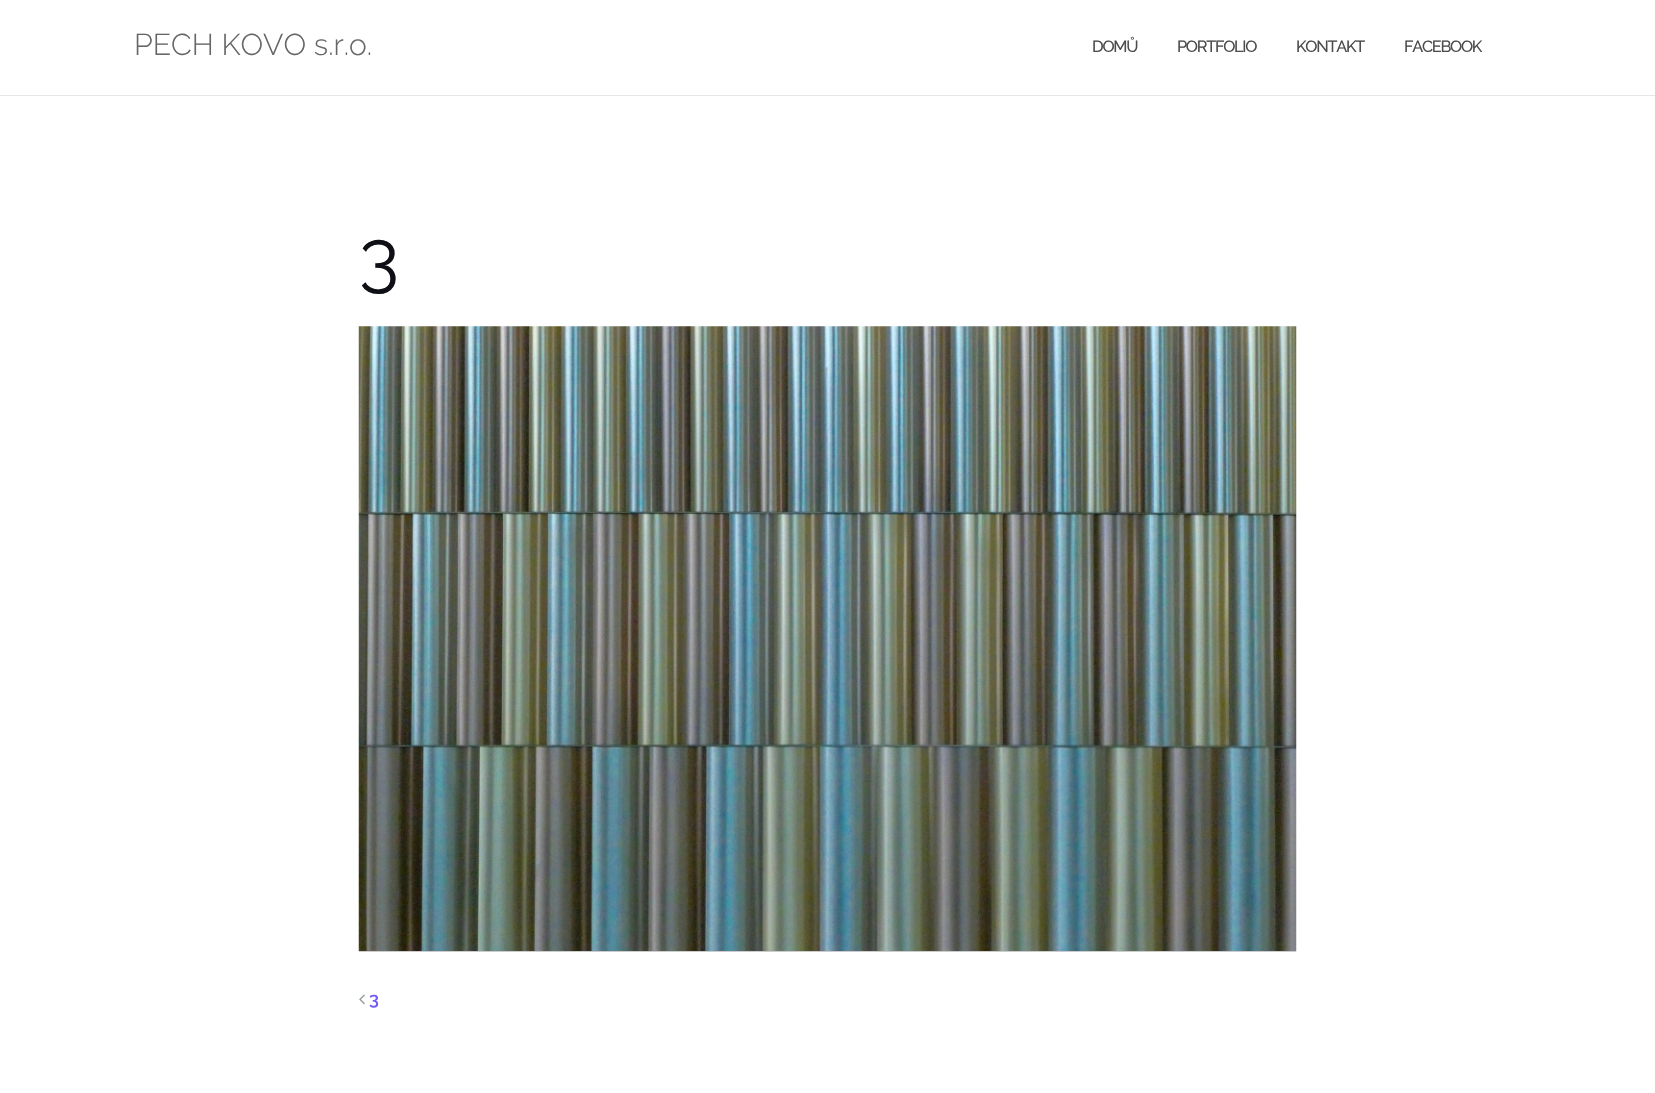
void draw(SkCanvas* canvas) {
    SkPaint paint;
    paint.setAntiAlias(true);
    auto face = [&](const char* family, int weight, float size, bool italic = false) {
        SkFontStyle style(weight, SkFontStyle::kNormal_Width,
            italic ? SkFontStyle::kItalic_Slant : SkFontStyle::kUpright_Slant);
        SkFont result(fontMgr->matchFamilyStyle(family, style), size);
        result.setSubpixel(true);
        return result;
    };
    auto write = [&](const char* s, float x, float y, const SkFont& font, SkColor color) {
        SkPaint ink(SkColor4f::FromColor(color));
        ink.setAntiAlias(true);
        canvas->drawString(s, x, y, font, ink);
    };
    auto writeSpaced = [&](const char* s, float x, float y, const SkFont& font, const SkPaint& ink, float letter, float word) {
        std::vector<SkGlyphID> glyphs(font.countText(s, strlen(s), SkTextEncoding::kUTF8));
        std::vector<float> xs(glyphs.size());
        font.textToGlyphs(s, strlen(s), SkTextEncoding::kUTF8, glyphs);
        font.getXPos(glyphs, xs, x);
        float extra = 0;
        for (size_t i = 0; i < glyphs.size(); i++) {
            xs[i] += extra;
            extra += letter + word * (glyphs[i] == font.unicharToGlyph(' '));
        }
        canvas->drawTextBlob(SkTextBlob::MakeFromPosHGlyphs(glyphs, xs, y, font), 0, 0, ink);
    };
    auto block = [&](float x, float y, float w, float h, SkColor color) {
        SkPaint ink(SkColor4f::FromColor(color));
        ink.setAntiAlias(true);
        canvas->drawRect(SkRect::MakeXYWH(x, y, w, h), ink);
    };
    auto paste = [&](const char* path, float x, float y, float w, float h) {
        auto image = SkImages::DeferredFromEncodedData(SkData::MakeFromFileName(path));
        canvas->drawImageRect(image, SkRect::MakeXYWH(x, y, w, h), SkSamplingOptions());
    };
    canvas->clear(SK_ColorWHITE);
    block(0, 95, 1655, 1, SkColorSetRGB(230, 230, 230));
    auto kFont1 = face("Raleway", 300, 30);
    write("PECH KOVO s.r.o.", 134, 55, kFont1, SkColorSetRGB(102, 102, 102));
    auto kFont2 = face("Raleway", 500, 16.25f);
    paint.setColor(SkColorSetRGB(76, 76, 76));
    writeSpaced("DOMŮ", 1092, 52, kFont2, paint, -1.25f, 0);
    writeSpaced("PORTFOLIO", 1177, 52, kFont2, paint, -1.25f, 0);
    writeSpaced("KONTAKT", 1296, 52, kFont2, paint, -1.25f, 0);
    writeSpaced("FACEBOOK", 1404, 52, kFont2, paint, -1.25f, 0);
    auto kFont3 = face("Raleway", 400, 75);
    write("3", 359, 283, kFont3, SkColorSetRGB(14, 16, 21));
    paste("pic1.png", 358, 326, 939, 626);
    block(359, 951, 937, 1, SkColorSetRGB(204, 204, 204));
    paste("pic2.png", 359, 994, 6, 11);
    auto kFont4 = face("Raleway", 600, 18);
    write("3", 369, 1005, kFont4, SkColorSetRGB(116, 92, 249));
}
